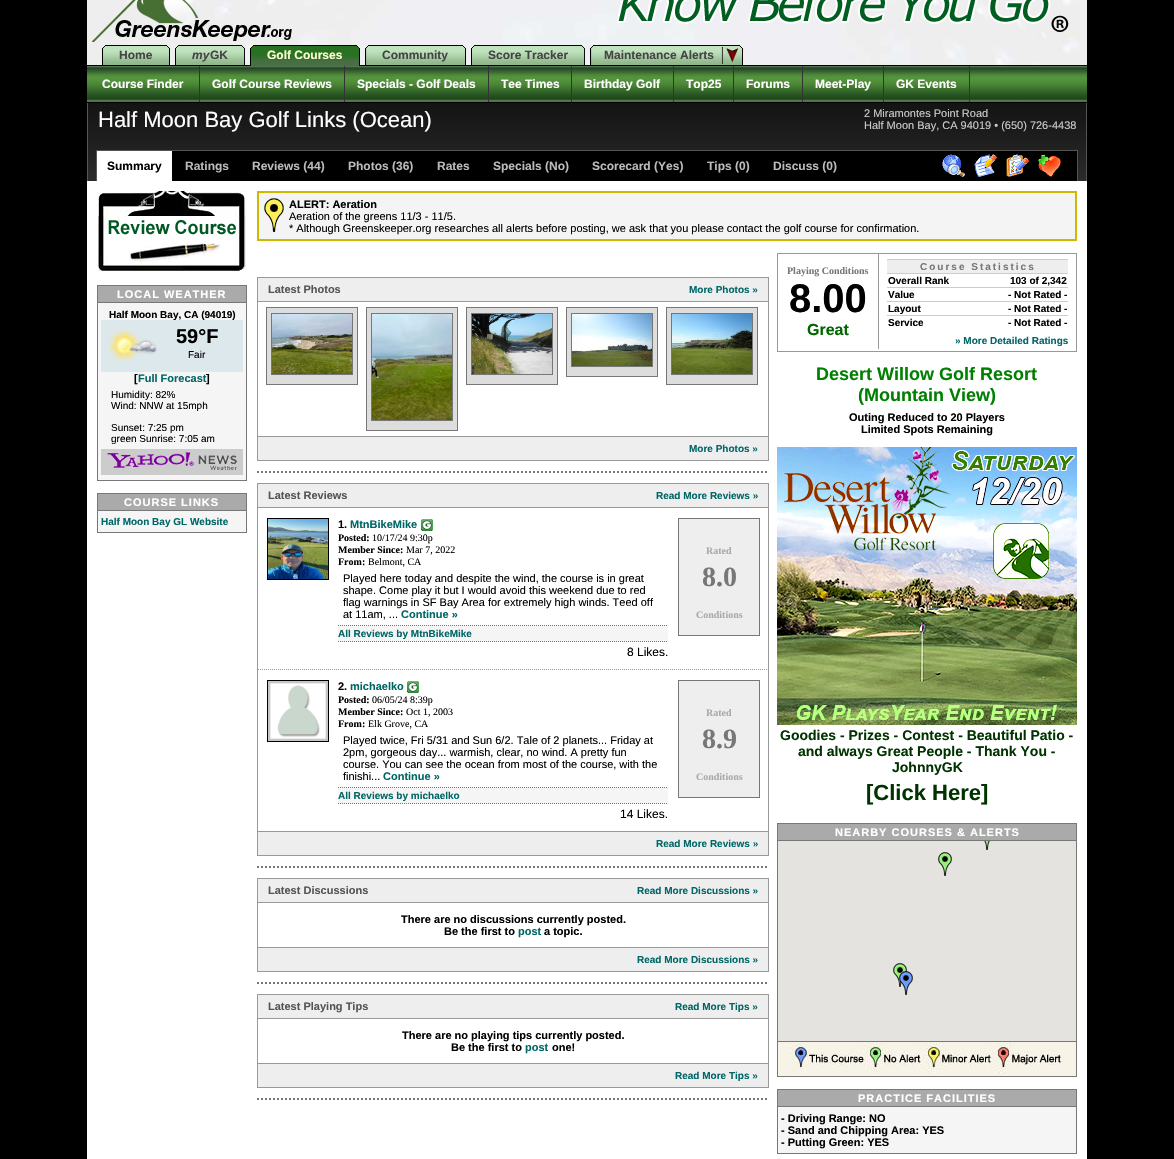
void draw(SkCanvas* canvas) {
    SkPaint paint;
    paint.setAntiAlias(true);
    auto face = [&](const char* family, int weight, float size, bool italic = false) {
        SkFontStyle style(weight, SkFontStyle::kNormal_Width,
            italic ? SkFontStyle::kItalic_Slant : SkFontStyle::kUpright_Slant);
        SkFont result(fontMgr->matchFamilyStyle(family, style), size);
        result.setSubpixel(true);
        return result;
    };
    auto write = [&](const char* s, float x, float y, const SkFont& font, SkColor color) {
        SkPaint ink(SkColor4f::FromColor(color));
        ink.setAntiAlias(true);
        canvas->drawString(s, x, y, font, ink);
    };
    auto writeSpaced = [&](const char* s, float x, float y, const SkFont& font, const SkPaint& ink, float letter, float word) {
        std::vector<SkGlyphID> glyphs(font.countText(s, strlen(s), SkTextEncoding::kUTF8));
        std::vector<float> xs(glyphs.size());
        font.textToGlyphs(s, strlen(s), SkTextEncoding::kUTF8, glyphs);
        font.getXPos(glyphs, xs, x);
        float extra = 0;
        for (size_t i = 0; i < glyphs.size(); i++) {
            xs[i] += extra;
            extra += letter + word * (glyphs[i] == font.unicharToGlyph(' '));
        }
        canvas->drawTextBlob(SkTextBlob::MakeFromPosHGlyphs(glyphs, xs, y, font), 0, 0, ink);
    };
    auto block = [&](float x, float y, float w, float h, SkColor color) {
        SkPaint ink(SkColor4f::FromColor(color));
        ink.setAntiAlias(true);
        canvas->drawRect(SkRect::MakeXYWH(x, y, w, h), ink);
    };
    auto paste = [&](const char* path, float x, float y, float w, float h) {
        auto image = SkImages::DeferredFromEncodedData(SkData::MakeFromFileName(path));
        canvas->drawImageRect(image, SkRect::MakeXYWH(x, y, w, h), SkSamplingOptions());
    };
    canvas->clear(SK_ColorBLACK);
    block(87, 181, 1000, 978, SK_ColorWHITE);
    paste("pic1.png", 87, 0, 1000, 102);
    paste("pic2.png", 92, 0, 200, 42);
    paste("pic3.png", 617, 0, 452, 32);
    paste("pic4.png", 102, 45, 4, 20);
    paste("pic5.png", 106, 45, 64, 20);
    auto kFont1 = face("Liberation Sans", 700, 12);
    write("Home", 119, 59, kFont1, SkColorSetRGB(68, 68, 68));
    paste("pic4.png", 175, 45, 4, 20);
    paste("pic6.png", 179, 45, 66, 20);
    auto kFont2 = face("Liberation Sans", 700, 12, true);
    write("my", 192, 59, kFont2, SkColorSetRGB(68, 68, 68));
    write("GK", 210, 59, kFont1, SkColorSetRGB(68, 68, 68));
    block(87, 65, 1000, 1, SK_ColorBLACK);
    paste("pic7.png", 250, 45, 4, 21);
    paste("pic8.png", 254, 45, 106, 21);
    write("Golf Courses", 267, 59, kFont1, SkColorSetRGB(255, 255, 204));
    paste("pic9.png", 365, 46, 3, 19);
    paste("pic10.png", 368, 45, 98, 20);
    write("Community", 382, 59, kFont1, SkColorSetRGB(68, 68, 68));
    paste("pic11.png", 471, 45, 4, 20);
    paste("pic12.png", 475, 45, 110, 20);
    write("Score Tracker", 488, 59, kFont1, SkColorSetRGB(68, 68, 68));
    paste("pic13.png", 590, 46, 3, 19);
    paste("pic14.png", 593, 45, 150, 20);
    write("Maintenance Alerts", 604, 59, kFont1, SkColorSetRGB(68, 68, 68));
    paste("pic15.png", 87, 66, 1000, 36);
    block(1086, 102, 1, 79, SkColorSetRGB(85, 85, 85));
    block(87, 102, 1, 79, SkColorSetRGB(85, 85, 85));
    block(87, 102, 1000, 1, SK_ColorBLACK);
    block(199, 66, 1, 36, SkColorSetRGB(51, 51, 51));
    write("Course Finder", 102, 88, kFont1, SK_ColorWHITE);
    block(344, 66, 1, 36, SkColorSetRGB(51, 51, 51));
    write("Golf Course Reviews", 212, 88, kFont1, SK_ColorWHITE);
    block(488, 66, 1, 36, SkColorSetRGB(51, 51, 51));
    write("Specials - Golf Deals", 357, 88, kFont1, SK_ColorWHITE);
    block(571, 66, 1, 36, SkColorSetRGB(51, 51, 51));
    write("Tee Times", 501, 88, kFont1, SK_ColorWHITE);
    block(673, 66, 1, 36, SkColorSetRGB(51, 51, 51));
    write("Birthday Golf", 584, 88, kFont1, SK_ColorWHITE);
    block(733, 66, 1, 36, SkColorSetRGB(51, 51, 51));
    write("Top25", 686, 88, kFont1, SK_ColorWHITE);
    block(802, 66, 1, 36, SkColorSetRGB(51, 51, 51));
    write("Forums", 746, 88, kFont1, SK_ColorWHITE);
    block(883, 66, 1, 36, SkColorSetRGB(51, 51, 51));
    write("Meet-Play", 815, 88, kFont1, SK_ColorWHITE);
    block(969, 66, 1, 36, SkColorSetRGB(51, 51, 51));
    write("GK Events", 896, 88, kFont1, SK_ColorWHITE);
    paste("pic16.png", 88, 103, 998, 78);
    auto kFont3 = face("Liberation Sans", 400, 22);
    write("Half Moon Bay Golf Links (Ocean)", 98, 127, kFont3, SK_ColorWHITE);
    auto kFont4 = face("Liberation Sans", 400, 11);
    write("2 Miramontes Point Road", 864, 117, kFont4, SkColorSetRGB(204, 204, 204));
    write("Half Moon Bay, CA 94019 • (650) 726-4438", 864, 129, kFont4, SkColorSetRGB(204, 204, 204));
    block(172, 151, 905, 30, SK_ColorBLACK);
    block(96, 150, 982, 1, SkColorSetRGB(85, 85, 85));
    block(1077, 150, 1, 31, SkColorSetRGB(85, 85, 85));
    block(96, 150, 1, 31, SkColorSetRGB(85, 85, 85));
    block(97, 151, 75, 30, SK_ColorWHITE);
    write("Summary", 107, 170, kFont1, SK_ColorBLACK);
    write("Ratings", 185, 170, kFont1, SkColorSetRGB(187, 187, 187));
    write("Reviews (44)", 252, 170, kFont1, SkColorSetRGB(187, 187, 187));
    write("Photos (36)", 348, 170, kFont1, SkColorSetRGB(187, 187, 187));
    write("Rates       Specials (No)", 437, 170, kFont1, SkColorSetRGB(187, 187, 187));
    write("Scorecard (Yes)", 592, 170, kFont1, SkColorSetRGB(187, 187, 187));
    write("Tips (0)", 707, 170, kFont1, SkColorSetRGB(187, 187, 187));
    write("Discuss (0)", 773, 170, kFont1, SkColorSetRGB(187, 187, 187));
    paste("pic17.png", 942, 154, 23, 23);
    paste("pic18.png", 974, 154, 23, 23);
    paste("pic19.png", 1006, 154, 23, 23);
    paste("pic20.png", 1038, 154, 23, 23);
    paste("pic21.png", 97, 191, 149, 80);
    block(98, 286, 148, 16, SkColorSetRGB(170, 170, 170));
    block(97, 285, 150, 1, SkColorSetRGB(119, 119, 119));
    block(246, 285, 1, 17, SkColorSetRGB(119, 119, 119));
    block(97, 285, 1, 17, SkColorSetRGB(119, 119, 119));
    auto kFont5 = face("Liberation Sans", 700, 11);
    paint.setColor(SK_ColorWHITE);
    writeSpaced("LOCAL WEATHER", 117, 298, kFont5, paint, 1, 0);
    paint.setColor(SkColorSetRGB(245, 245, 245));
    canvas->drawRect(SkRect::MakeXYWH(97.5f, 302.5f, 149, 178), paint);
    paint.setStyle(SkPaint::kStroke_Style);
    paint.setStrokeWidth(1);
    paint.setColor(SkColorSetRGB(119, 119, 119));
    canvas->drawRect(SkRect::MakeXYWH(97.5f, 302.5f, 149, 178), paint);
    block(101, 320, 142, 52, SkColorSetRGB(221, 232, 236));
    auto kFont6 = face("Liberation Sans", 700, 10);
    write("Half Moon Bay, CA (94019)", 109, 318, kFont6, SK_ColorBLACK);
    paste("pic22.png", 107, 328, 50, 34);
    auto kFont7 = face("Liberation Sans", 700, 20);
    write("59°F", 176, 343, kFont7, SK_ColorBLACK);
    auto kFont8 = face("Liberation Sans", 400, 10);
    write("Fair", 188, 358, kFont8, SK_ColorBLACK);
    write("[", 134, 382, kFont5, SK_ColorBLACK);
    write("Full Forecast", 138, 382, kFont5, SkColorSetRGB(0, 102, 102));
    write("]", 206, 382, kFont5, SK_ColorBLACK);
    write("Humidity: 82%", 111, 398, kFont8, SK_ColorBLACK);
    write("Wind: NNW at 15mph", 111, 409, kFont8, SK_ColorBLACK);
    write("Sunset: 7:25 pm", 111, 431, kFont8, SK_ColorBLACK);
    write("green Sunrise: 7:05 am", 111, 442, kFont8, SK_ColorBLACK);
    block(101, 449, 142, 26, SkColorSetRGB(204, 204, 204));
    paste("pic23.png", 107, 452, 130, 18);
    block(98, 494, 148, 16, SkColorSetRGB(170, 170, 170));
    block(97, 493, 150, 1, SkColorSetRGB(119, 119, 119));
    block(246, 493, 1, 17, SkColorSetRGB(119, 119, 119));
    block(97, 493, 1, 17, SkColorSetRGB(119, 119, 119));
    paint.setStyle(SkPaint::kFill_Style);
    paint.setColor(SK_ColorWHITE);
    writeSpaced("COURSE LINKS", 124, 506, kFont5, paint, 1, 0);
    paint.setColor(SkColorSetRGB(245, 245, 245));
    canvas->drawRect(SkRect::MakeXYWH(97.5f, 510.5f, 149, 22), paint);
    paint.setStyle(SkPaint::kStroke_Style);
    paint.setColor(SkColorSetRGB(119, 119, 119));
    canvas->drawRect(SkRect::MakeXYWH(97.5f, 510.5f, 149, 22), paint);
    write("Half Moon Bay GL Website", 101, 525, kFont6, SkColorSetRGB(0, 102, 102));
    paint.setStyle(SkPaint::kFill_Style);
    paint.setColor(SkColorSetRGB(244, 244, 244));
    canvas->drawRect(SkRect::MakeXYWH(258, 192, 818, 48), paint);
    paint.setStyle(SkPaint::kStroke_Style);
    paint.setStrokeWidth(2);
    paint.setColor(SkColorSetRGB(206, 184, 2));
    canvas->drawRect(SkRect::MakeXYWH(258, 192, 818, 48), paint);
    paste("pic24.png", 264, 198, 20, 34);
    write("ALERT: Aeration", 289, 208, kFont5, SK_ColorBLACK);
    write("Aeration of the greens 11/3 - 11/5.", 289, 220, kFont4, SK_ColorBLACK);
    write("* Although Greenskeeper.org researches all alerts before posting, we ask that you please contact the golf course for confirmation.", 289, 232, kFont4, SK_ColorBLACK);
    paint.setColor(SkColorSetRGB(119, 119, 119));
    paint.setPathEffect(SkDashPathEffect::Make({{2, 2}}, 0));
    canvas->drawPath(SkPathBuilder().moveTo(257, 472).lineTo(767, 472).detach(), paint);
    paint.setPathEffect(nullptr);
    paint.setStrokeWidth(1);
    paint.setColor(SkColorSetRGB(153, 153, 153));
    canvas->drawRect(SkRect::MakeXYWH(257.5f, 277.5f, 511, 183), paint);
    block(258, 278, 510, 23, SkColorSetRGB(238, 238, 238));
    block(258, 301, 510, 1, SkColorSetRGB(153, 153, 153));
    write("Latest Photos", 268, 293, kFont5, SkColorSetRGB(85, 85, 85));
    write("More Photos »", 689, 293, kFont6, SkColorSetRGB(0, 102, 102));
    paint.setStyle(SkPaint::kFill_Style);
    paint.setColor(SkColorSetRGB(221, 221, 221));
    canvas->drawRect(SkRect::MakeXYWH(266.5f, 307.5f, 91, 77), paint);
    paint.setStyle(SkPaint::kStroke_Style);
    paint.setColor(SkColorSetRGB(119, 119, 119));
    canvas->drawRect(SkRect::MakeXYWH(266.5f, 307.5f, 91, 77), paint);
    canvas->drawRect(SkRect::MakeXYWH(271.5f, 313.5f, 81, 61), paint);
    paste("pic25.png", 272, 314, 80, 60);
    paint.setStyle(SkPaint::kFill_Style);
    paint.setColor(SkColorSetRGB(221, 221, 221));
    canvas->drawRect(SkRect::MakeXYWH(366.5f, 307.5f, 91, 123), paint);
    paint.setStyle(SkPaint::kStroke_Style);
    paint.setColor(SkColorSetRGB(119, 119, 119));
    canvas->drawRect(SkRect::MakeXYWH(366.5f, 307.5f, 91, 123), paint);
    canvas->drawRect(SkRect::MakeXYWH(371.5f, 313.5f, 81, 107), paint);
    paste("pic26.png", 372, 314, 80, 106);
    paint.setStyle(SkPaint::kFill_Style);
    paint.setColor(SkColorSetRGB(221, 221, 221));
    canvas->drawRect(SkRect::MakeXYWH(466.5f, 307.5f, 91, 77), paint);
    paint.setStyle(SkPaint::kStroke_Style);
    paint.setColor(SkColorSetRGB(119, 119, 119));
    canvas->drawRect(SkRect::MakeXYWH(466.5f, 307.5f, 91, 77), paint);
    canvas->drawRect(SkRect::MakeXYWH(471.5f, 313.5f, 81, 61), paint);
    paste("pic27.png", 472, 314, 80, 60);
    paint.setStyle(SkPaint::kFill_Style);
    paint.setColor(SkColorSetRGB(221, 221, 221));
    canvas->drawRect(SkRect::MakeXYWH(566.5f, 307.5f, 91, 69), paint);
    paint.setStyle(SkPaint::kStroke_Style);
    paint.setColor(SkColorSetRGB(119, 119, 119));
    canvas->drawRect(SkRect::MakeXYWH(566.5f, 307.5f, 91, 69), paint);
    canvas->drawRect(SkRect::MakeXYWH(571.5f, 313.5f, 81, 53), paint);
    paste("pic28.png", 572, 314, 80, 52);
    paint.setStyle(SkPaint::kFill_Style);
    paint.setColor(SkColorSetRGB(221, 221, 221));
    canvas->drawRect(SkRect::MakeXYWH(666.5f, 307.5f, 91, 77), paint);
    paint.setStyle(SkPaint::kStroke_Style);
    paint.setColor(SkColorSetRGB(119, 119, 119));
    canvas->drawRect(SkRect::MakeXYWH(666.5f, 307.5f, 91, 77), paint);
    canvas->drawRect(SkRect::MakeXYWH(671.5f, 313.5f, 81, 61), paint);
    paste("pic29.png", 672, 314, 80, 60);
    block(258, 437, 510, 23, SkColorSetRGB(238, 238, 238));
    block(258, 436, 510, 1, SkColorSetRGB(153, 153, 153));
    write("More Photos »", 689, 452, kFont6, SkColorSetRGB(0, 102, 102));
    paint.setStrokeWidth(2);
    paint.setPathEffect(SkDashPathEffect::Make({{2, 2}}, 0));
    canvas->drawPath(SkPathBuilder().moveTo(257, 867).lineTo(767, 867).detach(), paint);
    paint.setPathEffect(nullptr);
    paint.setStrokeWidth(1);
    paint.setColor(SkColorSetRGB(153, 153, 153));
    canvas->drawRect(SkRect::MakeXYWH(257.5f, 483.5f, 511, 372), paint);
    block(258, 484, 510, 23, SkColorSetRGB(238, 238, 238));
    block(258, 507, 510, 1, SkColorSetRGB(153, 153, 153));
    write("Latest Reviews", 268, 499, kFont5, SkColorSetRGB(85, 85, 85));
    write("Read More Reviews »", 656, 499, kFont6, SkColorSetRGB(0, 102, 102));
    paint.setPathEffect(SkDashPathEffect::Make({{1, 1}}, 0));
    canvas->drawPath(SkPathBuilder().moveTo(258, 669.5f).lineTo(768, 669.5f).detach(), paint);
    paint.setPathEffect(nullptr);
    paint.setColor(SK_ColorBLACK);
    canvas->drawRect(SkRect::MakeXYWH(267.5f, 518.5f, 61, 61), paint);
    paste("pic30.png", 268, 519, 60, 60);
    write("1.", 338, 528, kFont5, SK_ColorBLACK);
    write("MtnBikeMike", 350, 528, kFont5, SkColorSetRGB(0, 102, 102));
    paste("pic31.png", 421, 519, 12, 12);
    auto kFont9 = face("Liberation Serif", 700, 10);
    write("Posted:", 338, 541, kFont9, SK_ColorBLACK);
    auto kFont10 = face("Liberation Serif", 400, 10);
    write("10/17/24 9:30p", 372, 541, kFont10, SK_ColorBLACK);
    write("Member Since:", 338, 553, kFont9, SK_ColorBLACK);
    write("Mar 7, 2022", 406, 553, kFont10, SK_ColorBLACK);
    write("From:", 338, 565, kFont9, SK_ColorBLACK);
    write("Belmont, CA", 368, 565, kFont10, SK_ColorBLACK);
    write("Played here today and despite the wind, the course is in great", 343, 582, kFont4, SK_ColorBLACK);
    write("shape. Come play it but I would avoid this weekend due to red", 343, 594, kFont4, SK_ColorBLACK);
    write("flag warnings in SF Bay Area for extremely high winds. Teed off", 343, 606, kFont4, SK_ColorBLACK);
    write("at 11am, ...", 343, 618, kFont4, SK_ColorBLACK);
    write("Continue »", 401, 618, kFont5, SkColorSetRGB(0, 102, 102));
    block(338, 625, 330, 17, SkColorSetRGB(245, 245, 245));
    paint.setColor(SkColorSetRGB(119, 119, 119));
    paint.setPathEffect(SkDashPathEffect::Make({{1, 1}}, 0));
    canvas->drawPath(SkPathBuilder().moveTo(338, 625.5f).lineTo(668, 625.5f).detach(), paint);
    paint.setPathEffect(nullptr);
    paint.setPathEffect(SkDashPathEffect::Make({{1, 1}}, 0));
    canvas->drawPath(SkPathBuilder().moveTo(338, 641.5f).lineTo(668, 641.5f).detach(), paint);
    paint.setPathEffect(nullptr);
    write("All Reviews by MtnBikeMike", 338, 637, kFont6, SkColorSetRGB(0, 102, 102));
    auto kFont11 = face("Liberation Sans", 400, 12);
    write("8 Likes.", 627, 656, kFont11, SK_ColorBLACK);
    paint.setStyle(SkPaint::kFill_Style);
    paint.setColor(SkColorSetRGB(238, 238, 238));
    canvas->drawRect(SkRect::MakeXYWH(678.5f, 518.5f, 81, 117), paint);
    paint.setStyle(SkPaint::kStroke_Style);
    paint.setColor(SkColorSetRGB(119, 119, 119));
    canvas->drawRect(SkRect::MakeXYWH(678.5f, 518.5f, 81, 117), paint);
    write("Rated", 706, 554, kFont9, SkColorSetRGB(170, 170, 170));
    auto kFont12 = face("Liberation Serif", 700, 28);
    write("8.0", 702, 586, kFont12, SkColorSetRGB(119, 119, 119));
    write("Conditions", 696, 618, kFont9, SkColorSetRGB(170, 170, 170));
    paint.setColor(SK_ColorBLACK);
    canvas->drawRect(SkRect::MakeXYWH(267.5f, 680.5f, 61, 61), paint);
    paste("pic32.png", 268, 681, 60, 60);
    write("2.", 338, 690, kFont5, SK_ColorBLACK);
    write("michaelko", 350, 690, kFont5, SkColorSetRGB(0, 102, 102));
    paste("pic31.png", 407, 681, 12, 12);
    write("Posted:", 338, 703, kFont9, SK_ColorBLACK);
    write("06/05/24 8:39p", 372, 703, kFont10, SK_ColorBLACK);
    write("Member Since:", 338, 715, kFont9, SK_ColorBLACK);
    write("Oct 1, 2003", 406, 715, kFont10, SK_ColorBLACK);
    write("From:", 338, 727, kFont9, SK_ColorBLACK);
    write("Elk Grove, CA", 368, 727, kFont10, SK_ColorBLACK);
    write("Played twice, Fri 5/31 and Sun 6/2. Tale of 2 planets... Friday at", 343, 744, kFont4, SK_ColorBLACK);
    write("2pm, gorgeous day... warmish, clear, no wind. A pretty fun", 343, 756, kFont4, SK_ColorBLACK);
    write("course. You can see the ocean from most of the course, with the", 343, 768, kFont4, SK_ColorBLACK);
    write("finishi...", 343, 780, kFont4, SK_ColorBLACK);
    write("Continue »", 383, 780, kFont5, SkColorSetRGB(0, 102, 102));
    block(338, 787, 330, 17, SkColorSetRGB(245, 245, 245));
    paint.setColor(SkColorSetRGB(119, 119, 119));
    paint.setPathEffect(SkDashPathEffect::Make({{1, 1}}, 0));
    canvas->drawPath(SkPathBuilder().moveTo(338, 787.5f).lineTo(668, 787.5f).detach(), paint);
    paint.setPathEffect(nullptr);
    paint.setPathEffect(SkDashPathEffect::Make({{1, 1}}, 0));
    canvas->drawPath(SkPathBuilder().moveTo(338, 803.5f).lineTo(668, 803.5f).detach(), paint);
    paint.setPathEffect(nullptr);
    write("All Reviews by michaelko", 338, 799, kFont6, SkColorSetRGB(0, 102, 102));
    write("14 Likes.", 620, 818, kFont11, SK_ColorBLACK);
    paint.setStyle(SkPaint::kFill_Style);
    paint.setColor(SkColorSetRGB(238, 238, 238));
    canvas->drawRect(SkRect::MakeXYWH(678.5f, 680.5f, 81, 117), paint);
    paint.setStyle(SkPaint::kStroke_Style);
    paint.setColor(SkColorSetRGB(119, 119, 119));
    canvas->drawRect(SkRect::MakeXYWH(678.5f, 680.5f, 81, 117), paint);
    write("Rated", 706, 716, kFont9, SkColorSetRGB(170, 170, 170));
    write("8.9", 702, 748, kFont12, SkColorSetRGB(119, 119, 119));
    write("Conditions", 696, 780, kFont9, SkColorSetRGB(170, 170, 170));
    block(258, 832, 510, 23, SkColorSetRGB(238, 238, 238));
    block(258, 831, 510, 1, SkColorSetRGB(153, 153, 153));
    write("Read More Reviews »", 656, 847, kFont6, SkColorSetRGB(0, 102, 102));
    paint.setStrokeWidth(2);
    paint.setPathEffect(SkDashPathEffect::Make({{2, 2}}, 0));
    canvas->drawPath(SkPathBuilder().moveTo(257, 983).lineTo(767, 983).detach(), paint);
    paint.setPathEffect(nullptr);
    paint.setStrokeWidth(1);
    paint.setColor(SkColorSetRGB(153, 153, 153));
    canvas->drawRect(SkRect::MakeXYWH(257.5f, 878.5f, 511, 93), paint);
    block(258, 879, 510, 23, SkColorSetRGB(238, 238, 238));
    block(258, 902, 510, 1, SkColorSetRGB(153, 153, 153));
    write("Latest Discussions", 268, 894, kFont5, SkColorSetRGB(85, 85, 85));
    write("Read More Discussions »", 637, 894, kFont6, SkColorSetRGB(0, 102, 102));
    write("There are no discussions currently posted.", 401, 923, kFont5, SK_ColorBLACK);
    write("Be the first to", 444, 935, kFont5, SK_ColorBLACK);
    write("post", 518, 935, kFont5, SkColorSetRGB(0, 102, 102));
    write("a topic.", 544, 935, kFont5, SK_ColorBLACK);
    block(258, 948, 510, 23, SkColorSetRGB(238, 238, 238));
    block(258, 947, 510, 1, SkColorSetRGB(153, 153, 153));
    write("Read More Discussions »", 637, 963, kFont6, SkColorSetRGB(0, 102, 102));
    paint.setStrokeWidth(2);
    paint.setColor(SkColorSetRGB(119, 119, 119));
    paint.setPathEffect(SkDashPathEffect::Make({{2, 2}}, 0));
    canvas->drawPath(SkPathBuilder().moveTo(257, 1099).lineTo(767, 1099).detach(), paint);
    paint.setPathEffect(nullptr);
    paint.setStrokeWidth(1);
    paint.setColor(SkColorSetRGB(153, 153, 153));
    canvas->drawRect(SkRect::MakeXYWH(257.5f, 994.5f, 511, 93), paint);
    block(258, 995, 510, 23, SkColorSetRGB(238, 238, 238));
    block(258, 1018, 510, 1, SkColorSetRGB(153, 153, 153));
    write("Latest Playing Tips", 268, 1010, kFont5, SkColorSetRGB(85, 85, 85));
    write("Read More Tips »", 675, 1010, kFont6, SkColorSetRGB(0, 102, 102));
    write("There are no playing tips currently posted.", 402, 1039, kFont5, SK_ColorBLACK);
    write("Be the first to", 451, 1051, kFont5, SK_ColorBLACK);
    write("post", 525, 1051, kFont5, SkColorSetRGB(0, 102, 102));
    write("one!", 552, 1051, kFont5, SK_ColorBLACK);
    block(258, 1064, 510, 23, SkColorSetRGB(238, 238, 238));
    block(258, 1063, 510, 1, SkColorSetRGB(153, 153, 153));
    write("Read More Tips »", 675, 1079, kFont6, SkColorSetRGB(0, 102, 102));
    canvas->drawRect(SkRect::MakeXYWH(777.5f, 253.5f, 299, 98), paint);
    block(878, 254, 1, 95, SkColorSetRGB(153, 153, 153));
    write("Playing Conditions", 787, 274, kFont9, SkColorSetRGB(119, 119, 119));
    auto kFont13 = face("Liberation Sans", 700, 40);
    write("8.00", 789, 312, kFont13, SK_ColorBLACK);
    auto kFont14 = face("Liberation Sans", 700, 16);
    write("Great", 807, 335, kFont14, SkColorSetRGB(0, 102, 0));
    block(887, 260, 181, 13, SkColorSetRGB(238, 238, 238));
    block(887, 259, 181, 1, SkColorSetRGB(204, 204, 204));
    paint.setStyle(SkPaint::kFill_Style);
    paint.setColor(SkColorSetRGB(119, 119, 119));
    writeSpaced("Course Statistics", 920, 270, kFont6, paint, 2, 0);
    block(887, 273, 181, 1, SkColorSetRGB(204, 204, 204));
    write("Overall Rank", 888, 284, kFont6, SK_ColorBLACK);
    write("103 of 2,342", 1010, 284, kFont6, SK_ColorBLACK);
    block(887, 287, 181, 1, SkColorSetRGB(204, 204, 204));
    write("Value", 888, 298, kFont6, SK_ColorBLACK);
    write("- Not Rated -", 1008, 298, kFont6, SK_ColorBLACK);
    block(887, 301, 181, 1, SkColorSetRGB(204, 204, 204));
    write("Layout", 888, 312, kFont6, SK_ColorBLACK);
    write("- Not Rated -", 1008, 312, kFont6, SK_ColorBLACK);
    block(887, 315, 181, 1, SkColorSetRGB(204, 204, 204));
    write("Service", 888, 326, kFont6, SK_ColorBLACK);
    write("- Not Rated -", 1008, 326, kFont6, SK_ColorBLACK);
    write("» More Detailed Ratings", 955, 344, kFont6, SkColorSetRGB(0, 102, 102));
    auto kFont15 = face("Liberation Sans", 700, 18);
    write("Desert Willow Golf Resort", 816, 380, kFont15, SkColorSetRGB(0, 128, 0));
    write("(Mountain View)", 858, 401, kFont15, SkColorSetRGB(0, 128, 0));
    write("Outing Reduced to 20 Players", 849, 421, kFont5, SK_ColorBLACK);
    write("Limited Spots Remaining", 861, 433, kFont5, SK_ColorBLACK);
    paste("pic33.png", 777, 447, 300, 278);
    auto kFont16 = face("Liberation Sans", 700, 14);
    write("Goodies - Prizes - Contest - Beautiful Patio -", 780, 740, kFont16, SkColorSetRGB(0, 51, 0));
    write("and always Great People - Thank You -", 798, 756, kFont16, SkColorSetRGB(0, 51, 0));
    write("JohnnyGK", 892, 772, kFont16, SkColorSetRGB(0, 51, 0));
    auto kFont17 = face("Liberation Sans", 700, 22);
    write("[Click Here]", 866, 800, kFont17, SkColorSetRGB(0, 51, 0));
    block(778, 824, 298, 16, SkColorSetRGB(170, 170, 170));
    block(777, 823, 300, 1, SkColorSetRGB(119, 119, 119));
    block(1076, 823, 1, 17, SkColorSetRGB(119, 119, 119));
    block(777, 823, 1, 17, SkColorSetRGB(119, 119, 119));
    paint.setColor(SK_ColorWHITE);
    writeSpaced("NEARBY COURSES & ALERTS", 835, 836, kFont5, paint, 1, 0);
    paint.setStyle(SkPaint::kStroke_Style);
    paint.setColor(SkColorSetRGB(119, 119, 119));
    canvas->drawRect(SkRect::MakeXYWH(777.5f, 840.5f, 299, 201), paint);
    block(778, 841, 298, 200, SkColorSetRGB(229, 227, 223));
    paste("pic34.png", 984, 841, 6, 9);
    paste("pic35.png", 938, 852, 14, 24);
    paste("pic35.png", 893, 963, 14, 24);
    paste("pic36.png", 899, 971, 14, 24);
    block(778, 1042, 298, 34, SkColorSetRGB(247, 243, 231));
    block(1076, 1042, 1, 35, SkColorSetRGB(119, 119, 119));
    block(777, 1076, 300, 1, SkColorSetRGB(119, 119, 119));
    block(777, 1042, 1, 35, SkColorSetRGB(119, 119, 119));
    paste("pic37.png", 791, 1042, 272, 32);
    block(778, 1090, 298, 16, SkColorSetRGB(170, 170, 170));
    block(777, 1089, 300, 1, SkColorSetRGB(119, 119, 119));
    block(1076, 1089, 1, 17, SkColorSetRGB(119, 119, 119));
    block(777, 1089, 1, 17, SkColorSetRGB(119, 119, 119));
    paint.setStyle(SkPaint::kFill_Style);
    paint.setColor(SK_ColorWHITE);
    writeSpaced("PRACTICE FACILITIES", 858, 1102, kFont5, paint, 1, 0);
    paint.setColor(SkColorSetRGB(245, 245, 245));
    canvas->drawRect(SkRect::MakeXYWH(777.5f, 1106.5f, 299, 47), paint);
    paint.setStyle(SkPaint::kStroke_Style);
    paint.setColor(SkColorSetRGB(119, 119, 119));
    canvas->drawRect(SkRect::MakeXYWH(777.5f, 1106.5f, 299, 47), paint);
    write("- Driving Range: NO", 781, 1122, kFont5, SK_ColorBLACK);
    write("- Sand and Chipping Area: YES", 781, 1134, kFont5, SK_ColorBLACK);
    write("- Putting Green: YES", 781, 1146, kFont5, SK_ColorBLACK);
}
